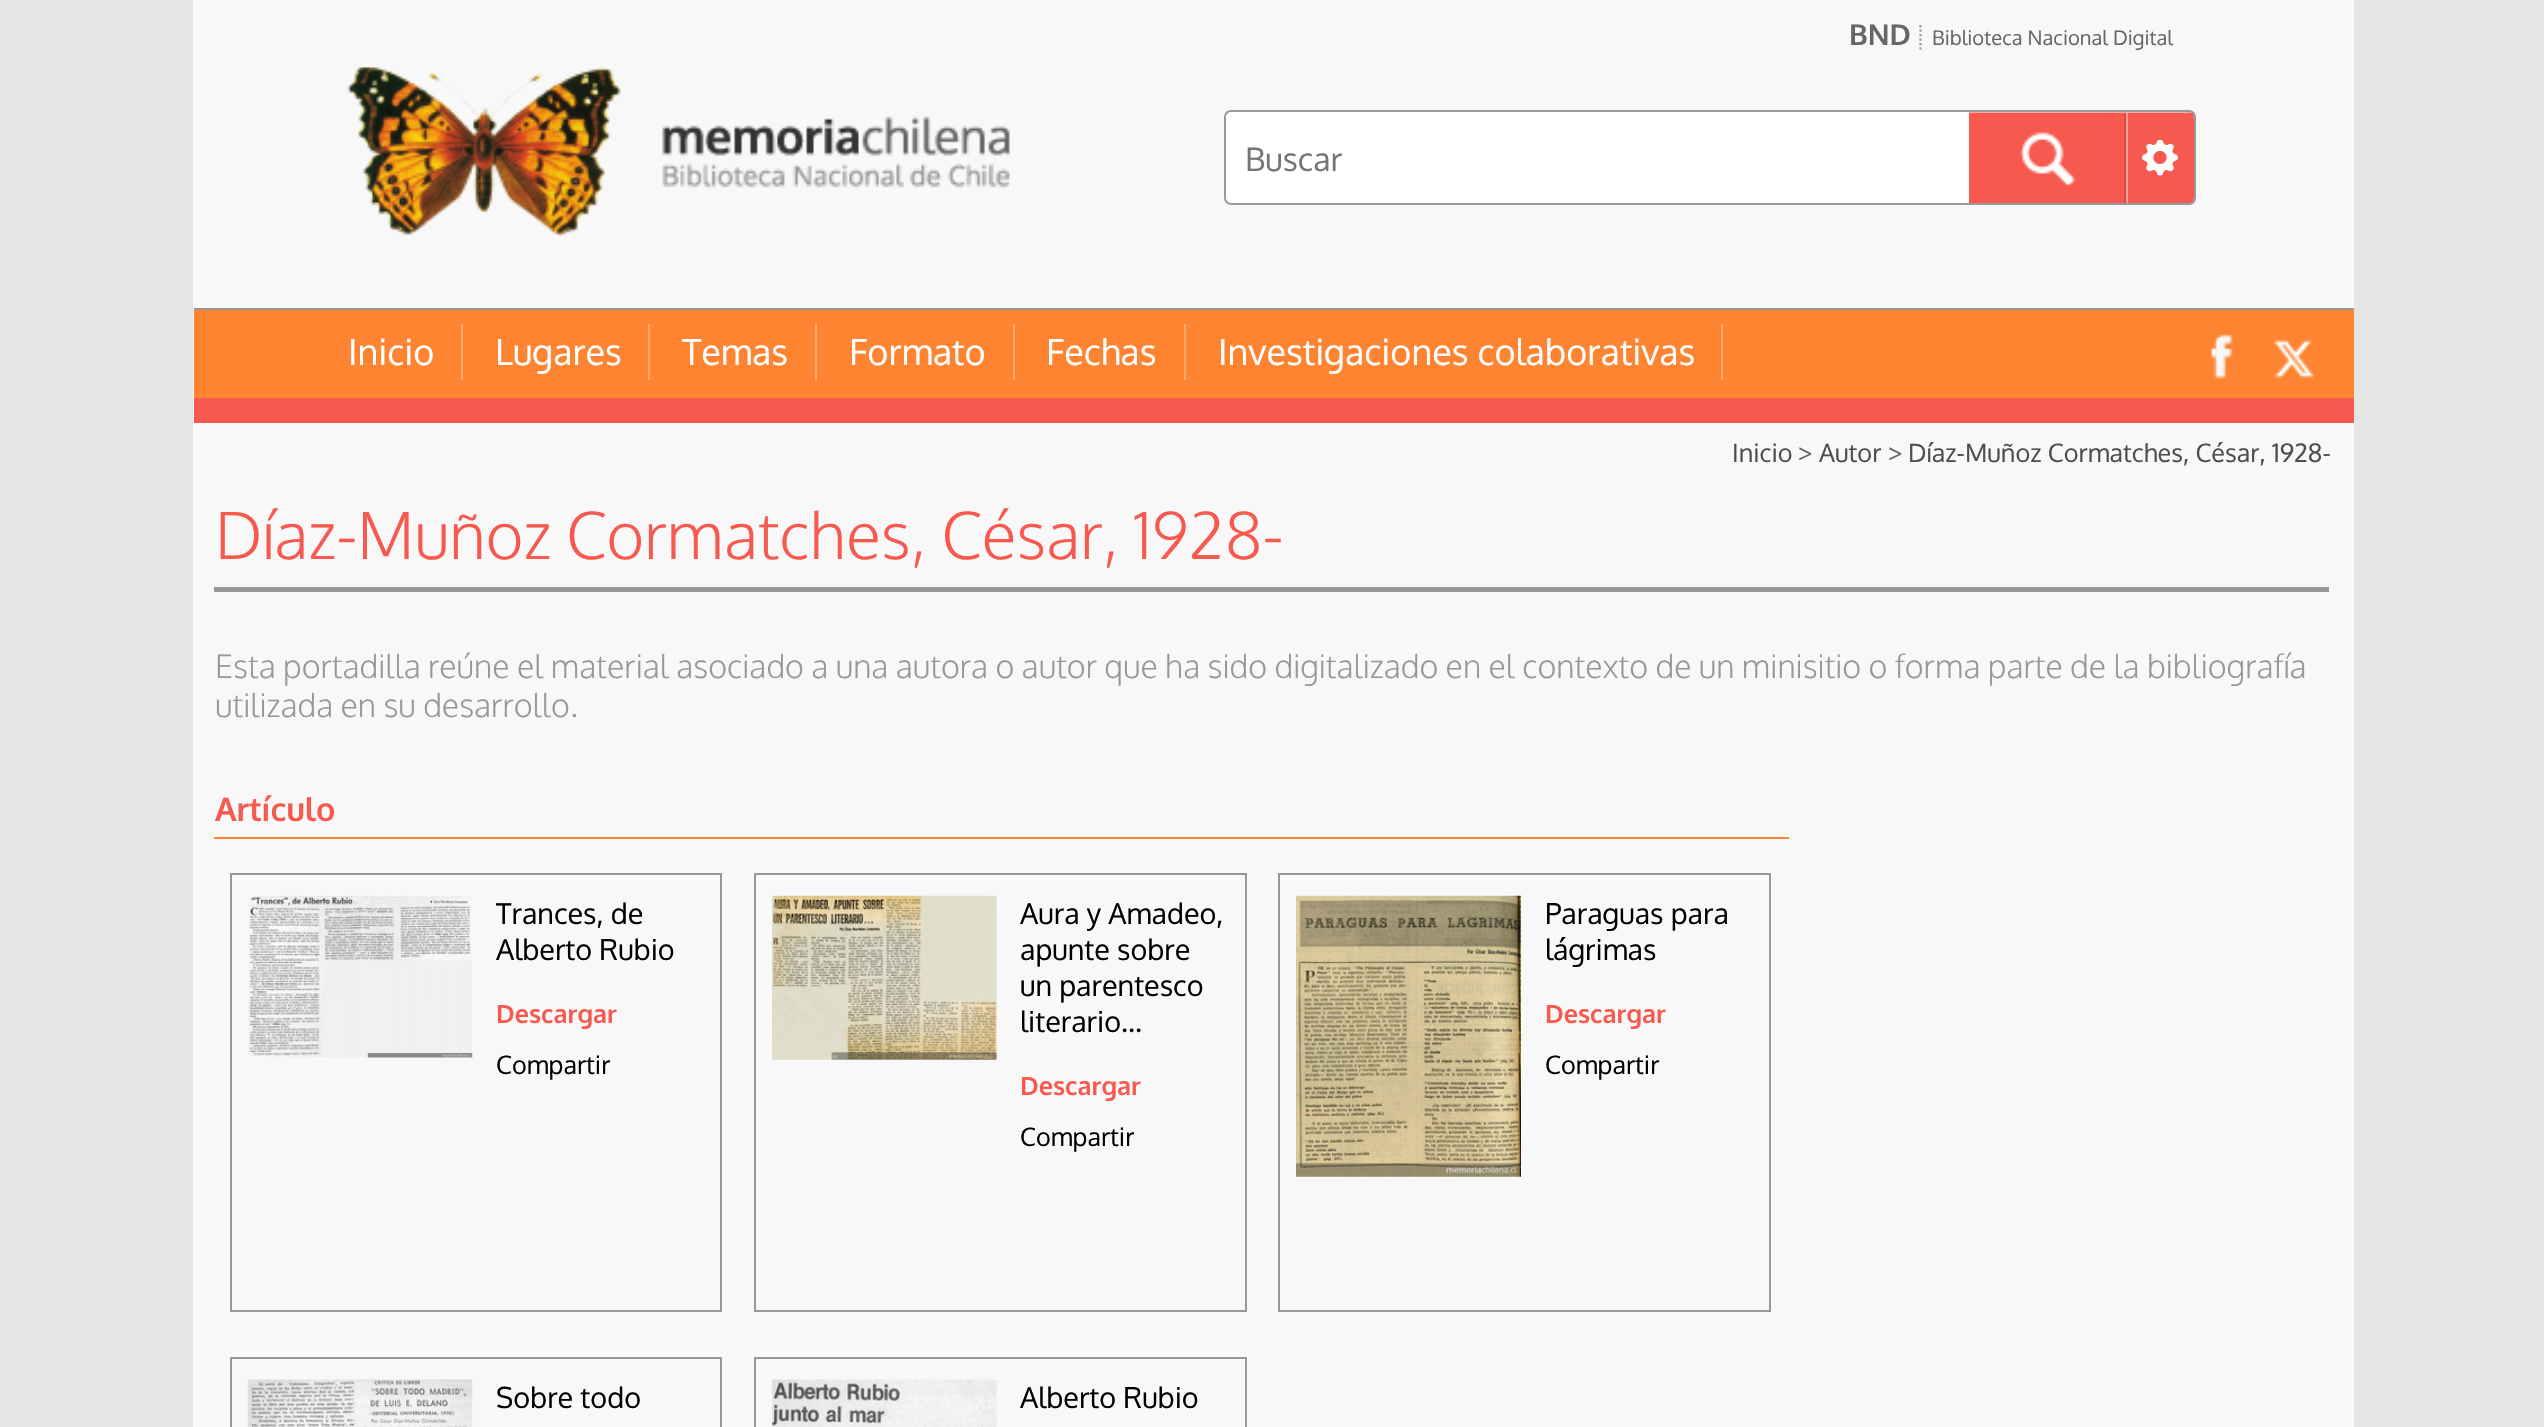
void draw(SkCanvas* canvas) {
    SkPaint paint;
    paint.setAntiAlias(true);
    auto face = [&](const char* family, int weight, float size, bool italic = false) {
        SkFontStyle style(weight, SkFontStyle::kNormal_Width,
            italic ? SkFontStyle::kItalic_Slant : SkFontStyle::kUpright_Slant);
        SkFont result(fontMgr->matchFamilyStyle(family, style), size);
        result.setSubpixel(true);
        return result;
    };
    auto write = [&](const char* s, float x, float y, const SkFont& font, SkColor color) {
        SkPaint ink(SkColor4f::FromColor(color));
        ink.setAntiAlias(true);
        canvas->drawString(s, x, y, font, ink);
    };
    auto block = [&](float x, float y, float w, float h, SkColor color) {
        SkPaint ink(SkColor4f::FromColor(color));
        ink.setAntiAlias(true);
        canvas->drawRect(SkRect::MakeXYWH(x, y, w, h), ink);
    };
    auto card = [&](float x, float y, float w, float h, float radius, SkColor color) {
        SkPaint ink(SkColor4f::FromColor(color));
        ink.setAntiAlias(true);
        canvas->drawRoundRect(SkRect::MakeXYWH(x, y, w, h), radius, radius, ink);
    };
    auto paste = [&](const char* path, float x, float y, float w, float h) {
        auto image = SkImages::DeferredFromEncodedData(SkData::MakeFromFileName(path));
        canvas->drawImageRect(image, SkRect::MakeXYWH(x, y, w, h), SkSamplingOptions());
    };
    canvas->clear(SkColorSetRGB(229, 229, 229));
    block(193, 0, 2161, 1427, SkColorSetRGB(248, 248, 248));
    auto kFont1 = face("Oxygen", 700, 28.75f);
    write("BND", 1849, 45, kFont1, SkColorSetRGB(102, 102, 102));
    paint.setStyle(SkPaint::kStroke_Style);
    paint.setStrokeWidth(2.2f);
    paint.setColor(SkColorSetRGB(153, 153, 153));
    paint.setPathEffect(SkDashPathEffect::Make({{2.25f, 2.25f}}, 0));
    canvas->drawPath(SkPathBuilder().moveTo(1920.5f, 25).lineTo(1920.5f, 49.5f).detach(), paint);
    paint.setPathEffect(nullptr);
    auto kFont2 = face("Oxygen", 400, 20.2f);
    write("Biblioteca Nacional Digital", 1932, 45, kFont2, SkColorSetRGB(102, 102, 102));
    paste("pic1.png", 347, 67, 663, 170);
    card(1224, 110, 972, 95, 7, SK_ColorWHITE);
    paste("pic2.png", 1968, 112, 226, 93);
    paint.setStrokeWidth(2);
    paint.setColor(SkColorSetRGB(152, 152, 152));
    canvas->drawRoundRect(SkRect::MakeXYWH(1225, 111, 970, 93), 6, 6, paint);
    paint.setStyle(SkPaint::kFill_Style);
    paint.setColor(SK_ColorWHITE);
    canvas->drawPath(SkPathBuilder().moveTo(1233, 113).lineTo(1969, 113).lineTo(1969, 203).lineTo(1233, 203).cubicTo(1229, 203, 1226, 200, 1226, 196).lineTo(1226, 120).cubicTo(1226, 116, 1229, 113, 1233, 113).close().detach(), paint);
    auto kFont3 = face("Oxygen", 400, 32.4f);
    write("Buscar", 1245, 171, kFont3, SkColorSetRGB(117, 117, 117));
    paste("pic3.png", 2020, 132, 56, 54);
    paint.setColor(SkColorSetRGB(210, 76, 67));
    canvas->drawPath(SkPathBuilder().moveTo(2124, 113).lineTo(2124, 203).lineTo(2185, 203).lineTo(2188, 202).lineTo(2126, 202).lineTo(2126, 113).close().detach(), paint);
    paint.setColor(SkColorSetRGB(247, 89, 79));
    canvas->drawPath(SkPathBuilder().moveTo(2126, 113).lineTo(2187, 113).cubicTo(2191, 113, 2194, 116, 2194, 120).lineTo(2194, 196).cubicTo(2194, 200, 2191, 203, 2187, 203).lineTo(2126, 203).close().detach(), paint);
    block(2126, 113, 2, 90, SkColorSetRGB(250, 155, 149));
    paste("pic4.png", 2142, 140, 36, 36);
    block(194, 310, 2160, 88, SkColorSetRGB(255, 132, 49));
    block(194, 308, 2160, 2, SkColorSetRGB(152, 152, 152));
    block(194, 398, 2160, 25, SkColorSetRGB(247, 89, 79));
    block(461, 324, 2, 56, SkColorSetRGB(254, 169, 116));
    auto kFont4 = face("Oxygen", 400, 36);
    write("Inicio", 348, 365, kFont4, SK_ColorWHITE);
    block(648, 324, 2, 56, SkColorSetRGB(254, 169, 116));
    write("Lugares", 495, 365, kFont4, SK_ColorWHITE);
    block(815, 324, 2, 56, SkColorSetRGB(254, 169, 116));
    write("Temas", 682, 365, kFont4, SK_ColorWHITE);
    block(1013, 324, 2, 56, SkColorSetRGB(254, 169, 116));
    write("Formato", 849, 365, kFont4, SK_ColorWHITE);
    block(1184, 324, 2, 56, SkColorSetRGB(254, 169, 116));
    write("Fechas", 1046, 365, kFont4, SK_ColorWHITE);
    block(1721, 324, 2, 56, SkColorSetRGB(254, 169, 116));
    write("Investigaciones colaborativas", 1218, 365, kFont4, SK_ColorWHITE);
    paste("pic5.png", 2211, 334, 22, 45);
    paste("pic6.png", 2274, 339, 40, 40);
    auto kFont5 = face("Oxygen", 400, 25.25f);
    write("Inicio", 1732, 462, kFont5, SkColorSetRGB(77, 77, 77));
    write(">", 1798, 462, kFont5, SkColorSetRGB(102, 102, 102));
    write("Autor", 1819, 462, kFont5, SkColorSetRGB(77, 77, 77));
    write(">", 1888, 462, kFont5, SkColorSetRGB(102, 102, 102));
    write("Díaz-Muñoz Cormatches, César, 1928-", 1908, 462, kFont5, SkColorSetRGB(77, 77, 77));
    block(214, 587, 2115, 5, SkColorSetRGB(152, 152, 152));
    auto kFont6 = face("Oxygen", 300, 64.75f);
    write("Díaz-Muñoz Cormatches, César, 1928-", 215, 559, kFont6, SkColorSetRGB(247, 89, 79));
    auto kFont7 = face("Oxygen", 300, 32.4f);
    write("Esta portadilla reúne el material asociado a una autora o autor que ha sido digitalizado en el contexto de un minisitio o forma parte de la bibliografía", 215, 678, kFont7, SkColorSetRGB(152, 152, 152));
    write("utilizada en su desarrollo.", 215, 717, kFont7, SkColorSetRGB(152, 152, 152));
    block(214, 837, 1575, 2, SkColorSetRGB(255, 132, 49));
    auto kFont8 = face("Oxygen", 700, 32.4f);
    write("Artículo", 215, 821, kFont8, SkColorSetRGB(247, 89, 79));
    paint.setStyle(SkPaint::kStroke_Style);
    paint.setColor(SkColorSetRGB(152, 152, 152));
    canvas->drawRect(SkRect::MakeXYWH(231, 874, 490, 437), paint);
    paste("pic7.png", 248, 895, 225, 163);
    auto kFont9 = face("Oxygen", 400, 28.75f);
    write("Trances, de", 496, 924, kFont9, SK_ColorBLACK);
    write("Alberto Rubio", 496, 960, kFont9, SK_ColorBLACK);
    auto kFont10 = face("Oxygen", 700, 25.25f);
    write("Descargar", 496, 1023, kFont10, SkColorSetRGB(247, 89, 79));
    write("Compartir", 496, 1074, kFont5, SK_ColorBLACK);
    canvas->drawRect(SkRect::MakeXYWH(755, 874, 491, 437), paint);
    paste("pic8.png", 772, 895, 225, 165);
    write("Aura y Amadeo,", 1020, 924, kFont9, SK_ColorBLACK);
    write("apunte sobre", 1020, 960, kFont9, SK_ColorBLACK);
    write("un parentesco", 1020, 996, kFont9, SK_ColorBLACK);
    write("literario...", 1020, 1032, kFont9, SK_ColorBLACK);
    write("Descargar", 1020, 1095, kFont10, SkColorSetRGB(247, 89, 79));
    write("Compartir", 1020, 1146, kFont5, SK_ColorBLACK);
    canvas->drawRect(SkRect::MakeXYWH(1279, 874, 491, 437), paint);
    paste("pic9.png", 1296, 895, 225, 282);
    write("Paraguas para", 1545, 924, kFont9, SK_ColorBLACK);
    write("lágrimas", 1545, 960, kFont9, SK_ColorBLACK);
    write("Descargar", 1545, 1023, kFont10, SkColorSetRGB(247, 89, 79));
    write("Compartir", 1545, 1074, kFont5, SK_ColorBLACK);
    canvas->drawRect(SkRect::MakeXYWH(231, 1358, 490, 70), paint);
    paste("pic10.png", 247, 1379, 226, 48);
    write("Sobre todo", 496, 1408, kFont9, SK_ColorBLACK);
    canvas->drawRect(SkRect::MakeXYWH(755, 1358, 491, 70), paint);
    paste("pic11.png", 771, 1379, 226, 48);
    write("Alberto Rubio", 1020, 1408, kFont9, SK_ColorBLACK);
}
